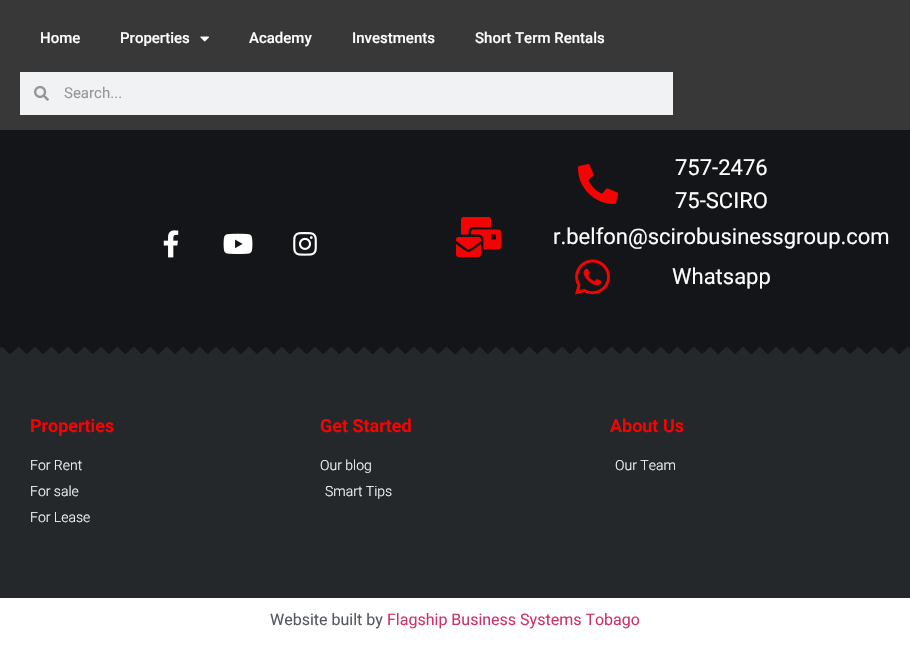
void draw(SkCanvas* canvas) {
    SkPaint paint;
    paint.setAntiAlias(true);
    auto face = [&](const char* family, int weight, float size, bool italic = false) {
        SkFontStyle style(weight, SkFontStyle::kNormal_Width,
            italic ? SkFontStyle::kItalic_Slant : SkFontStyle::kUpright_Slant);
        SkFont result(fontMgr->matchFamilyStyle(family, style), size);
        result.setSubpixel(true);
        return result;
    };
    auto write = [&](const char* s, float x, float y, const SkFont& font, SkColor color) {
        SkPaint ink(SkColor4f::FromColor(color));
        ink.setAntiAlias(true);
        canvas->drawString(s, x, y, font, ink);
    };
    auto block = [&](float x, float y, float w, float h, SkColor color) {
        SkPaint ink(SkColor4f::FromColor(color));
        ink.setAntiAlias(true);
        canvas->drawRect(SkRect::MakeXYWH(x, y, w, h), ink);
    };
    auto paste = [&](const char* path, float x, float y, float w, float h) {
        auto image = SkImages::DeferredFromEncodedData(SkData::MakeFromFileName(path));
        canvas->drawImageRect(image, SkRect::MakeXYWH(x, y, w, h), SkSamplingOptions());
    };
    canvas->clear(SK_ColorWHITE);
    block(0, 0, 910, 130, SkColorSetRGB(56, 56, 56));
    auto kFont1 = face("Roboto", 500, 15);
    write("Home", 40, 43, kFont1, SK_ColorWHITE);
    write("Properties", 120, 43, kFont1, SK_ColorWHITE);
    paste("pic1.png", 200, 36, 9, 6);
    write("Academy", 249, 43, kFont1, SK_ColorWHITE);
    write("Investments", 352, 43, kFont1, SK_ColorWHITE);
    write("Short Term Rentals", 475, 43, kFont1, SK_ColorWHITE);
    block(20, 72, 653, 43, SkColorSetRGB(241, 242, 243));
    paste("pic2.png", 34, 85, 15, 16);
    auto kFont2 = face("Roboto", 400, 15);
    write("Search...", 64, 98, kFont2, SkColorSetRGB(147, 150, 154));
    block(0, 130, 910, 217, SkColorSetRGB(20, 21, 25));
    paste("pic3.png", 163, 230, 16, 28);
    paste("pic4.png", 223, 233, 30, 21);
    paste("pic5.png", 293, 232, 24, 24);
    paste("pic6.png", 578, 164, 40, 40);
    auto kFont3 = face("Roboto", 400, 22);
    write("757-2476", 675, 175, kFont3, SK_ColorWHITE);
    write("75-SCIRO", 675, 208, kFont3, SK_ColorWHITE);
    paste("pic7.png", 456, 217, 45, 40);
    write("r.belfon@scirobusinessgroup.com", 553, 244, kFont3, SK_ColorWHITE);
    paste("pic8.png", 575, 259, 35, 36);
    write("Whatsapp", 672, 284, kFont3, SK_ColorWHITE);
    block(0, 347, 910, 251, SkColorSetRGB(37, 40, 43));
    paste("pic9.png", 0, 347, 910, 7);
    auto kFont4 = face("Roboto", 600, 18);
    write("Properties", 30, 432, kFont4, SkColorSetRGB(255, 0, 0));
    auto kFont5 = face("Roboto", 300, 14);
    write("For Rent", 30, 470, kFont5, SK_ColorWHITE);
    write("For sale", 30, 496, kFont5, SK_ColorWHITE);
    write("For Lease", 30, 522, kFont5, SK_ColorWHITE);
    write("Get Started", 320, 432, kFont4, SkColorSetRGB(255, 0, 0));
    write("Our blog", 320, 470, kFont5, SK_ColorWHITE);
    write("Smart Tips", 325, 496, kFont5, SK_ColorWHITE);
    write("About Us", 610, 432, kFont4, SkColorSetRGB(255, 0, 0));
    write("Our Team", 615, 470, kFont5, SK_ColorWHITE);
    auto kFont6 = face("Roboto", 400, 16);
    write("Website built by", 270, 625, kFont6, SkColorSetRGB(84, 89, 95));
    write("Flagship Business Systems Tobago", 387, 625, kFont6, SkColorSetRGB(204, 51, 102));
}
